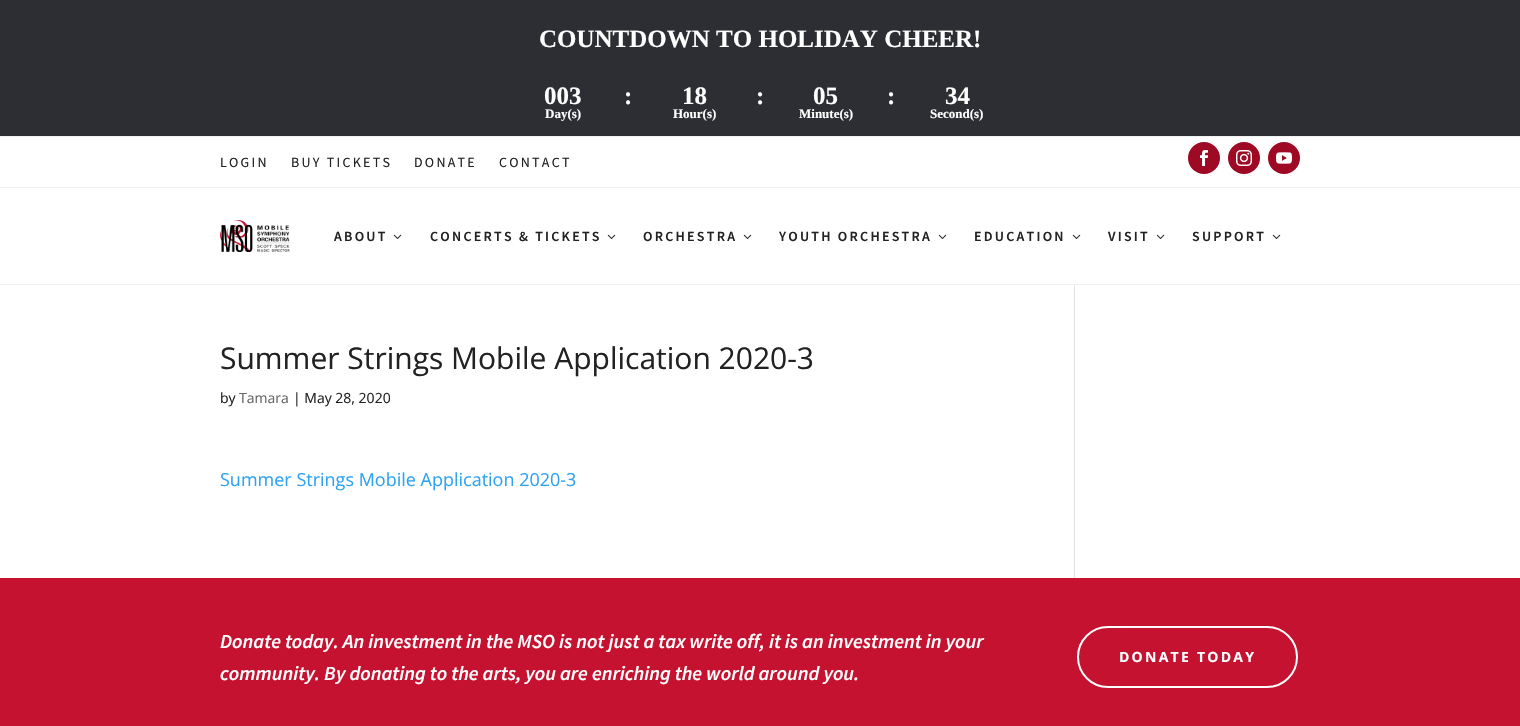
void draw(SkCanvas* canvas) {
    SkPaint paint;
    paint.setAntiAlias(true);
    auto face = [&](const char* family, int weight, float size, bool italic = false) {
        SkFontStyle style(weight, SkFontStyle::kNormal_Width,
            italic ? SkFontStyle::kItalic_Slant : SkFontStyle::kUpright_Slant);
        SkFont result(fontMgr->matchFamilyStyle(family, style), size);
        result.setSubpixel(true);
        return result;
    };
    auto write = [&](const char* s, float x, float y, const SkFont& font, SkColor color) {
        SkPaint ink(SkColor4f::FromColor(color));
        ink.setAntiAlias(true);
        canvas->drawString(s, x, y, font, ink);
    };
    auto writeSpaced = [&](const char* s, float x, float y, const SkFont& font, const SkPaint& ink, float letter, float word) {
        std::vector<SkGlyphID> glyphs(font.countText(s, strlen(s), SkTextEncoding::kUTF8));
        std::vector<float> xs(glyphs.size());
        font.textToGlyphs(s, strlen(s), SkTextEncoding::kUTF8, glyphs);
        font.getXPos(glyphs, xs, x);
        float extra = 0;
        for (size_t i = 0; i < glyphs.size(); i++) {
            xs[i] += extra;
            extra += letter + word * (glyphs[i] == font.unicharToGlyph(' '));
        }
        canvas->drawTextBlob(SkTextBlob::MakeFromPosHGlyphs(glyphs, xs, y, font), 0, 0, ink);
    };
    auto block = [&](float x, float y, float w, float h, SkColor color) {
        SkPaint ink(SkColor4f::FromColor(color));
        ink.setAntiAlias(true);
        canvas->drawRect(SkRect::MakeXYWH(x, y, w, h), ink);
    };
    auto paste = [&](const char* path, float x, float y, float w, float h) {
        auto image = SkImages::DeferredFromEncodedData(SkData::MakeFromFileName(path));
        canvas->drawImageRect(image, SkRect::MakeXYWH(x, y, w, h), SkSamplingOptions());
    };
    canvas->clear(SK_ColorWHITE);
    block(0, 0, 1520, 136, SkColorSetRGB(44, 46, 52));
    block(0, 136, 1520, 1, SkColorSetRGB(241, 241, 241));
    auto kFont1 = face("Liberation Serif", 700, 25);
    write("COUNTDOWN TO HOLIDAY CHEER!", 539, 47, kFont1, SK_ColorWHITE);
    write("003", 544, 104, kFont1, SK_ColorWHITE);
    auto kFont2 = face("Liberation Serif", 700, 13);
    write("Day(s)", 545, 118, kFont2, SK_ColorWHITE);
    write(":", 624, 104, kFont1, SK_ColorWHITE);
    write("18", 682, 104, kFont1, SK_ColorWHITE);
    write("Hour(s)", 673, 118, kFont2, SK_ColorWHITE);
    write(":", 756, 104, kFont1, SK_ColorWHITE);
    write("05", 813, 104, kFont1, SK_ColorWHITE);
    write("Minute(s)", 799, 118, kFont2, SK_ColorWHITE);
    write(":", 887, 104, kFont1, SK_ColorWHITE);
    write("34", 945, 104, kFont1, SK_ColorWHITE);
    write("Second(s)", 930, 118, kFont2, SK_ColorWHITE);
    block(0, 187, 1520, 1, SkColorSetRGB(241, 241, 241));
    auto kFont3 = face("Source Sans Pro", 400, 14);
    paint.setColor(SkColorSetRGB(34, 34, 34));
    writeSpaced("LOGIN", 220, 167, kFont3, paint, 2.25f, 0);
    writeSpaced("BUY TICKETS", 291, 167, kFont3, paint, 2.25f, 0);
    writeSpaced("DONATE", 414, 167, kFont3, paint, 2.25f, 0);
    writeSpaced("CONTACT", 499, 167, kFont3, paint, 2.25f, 0);
    paint.setColor(SkColorSetRGB(158, 9, 36));
    canvas->drawCircle(1204, 158, 16, paint);
    paste("pic1.png", 1200, 150, 8, 16);
    canvas->drawCircle(1244, 158, 16, paint);
    paste("pic2.png", 1236, 150, 16, 16);
    canvas->drawCircle(1284, 158, 16, paint);
    paste("pic3.png", 1276, 152, 16, 12);
    block(0, 284, 1520, 1, SkColorSetRGB(241, 241, 241));
    paste("pic4.png", 220, 220, 70, 32);
    auto kFont4 = face("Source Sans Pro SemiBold", 600, 14);
    paint.setColor(SkColorSetRGB(34, 34, 34));
    writeSpaced("ABOUT", 334, 241, kFont4, paint, 2.25f, 0);
    paste("pic5.png", 393, 234, 9, 5);
    writeSpaced("CONCERTS & TICKETS", 430, 241, kFont4, paint, 2.25f, 0);
    paste("pic5.png", 607, 234, 9, 5);
    writeSpaced("ORCHESTRA", 643, 241, kFont4, paint, 2.25f, 0);
    paste("pic5.png", 743, 234, 9, 5);
    writeSpaced("YOUTH ORCHESTRA", 779, 241, kFont4, paint, 2.25f, 0);
    paste("pic5.png", 938, 234, 9, 5);
    writeSpaced("EDUCATION", 974, 241, kFont4, paint, 2.25f, 0);
    paste("pic5.png", 1072, 234, 9, 5);
    writeSpaced("VISIT", 1108, 241, kFont4, paint, 2.25f, 0);
    paste("pic5.png", 1156, 234, 9, 5);
    writeSpaced("SUPPORT", 1192, 241, kFont4, paint, 2.25f, 0);
    paste("pic5.png", 1272, 234, 9, 5);
    auto kFont5 = face("Open Sans", 400, 30);
    write("Summer Strings Mobile Application 2020-3", 220, 369, kFont5, SkColorSetRGB(34, 34, 34));
    auto kFont6 = face("Open Sans", 400, 14);
    write("by", 220, 403, kFont6, SkColorSetRGB(34, 34, 34));
    write("Tamara", 239, 403, kFont6, SkColorSetRGB(102, 102, 102));
    write("| May 28, 2020", 293, 403, kFont6, SkColorSetRGB(34, 34, 34));
    auto kFont7 = face("Open Sans", 400, 18);
    write("Summer Strings Mobile Application 2020-3", 220, 486, kFont7, SkColorSetRGB(46, 163, 242));
    block(1074, 285, 1, 293, SkColorSetRGB(226, 226, 226));
    block(0, 578, 1520, 148, SkColorSetRGB(196, 18, 48));
    auto kFont8 = face("Source Sans Pro SemiBold", 600, 20, true);
    write("Donate today. An investment in the MSO is not just a tax write off, it is an investment in your", 220, 648, kFont8, SK_ColorWHITE);
    write("community. By donating to the arts, you are enriching the world around you.", 220, 680, kFont8, SK_ColorWHITE);
    paint.setStyle(SkPaint::kStroke_Style);
    paint.setStrokeWidth(2);
    paint.setColor(SK_ColorWHITE);
    canvas->drawRoundRect(SkRect::MakeXYWH(1078, 627, 219, 60), 30, 30, paint);
    auto kFont9 = face("Open Sans", 700, 14);
    paint.setStyle(SkPaint::kFill_Style);
    writeSpaced("DONATE TODAY", 1119, 662, kFont9, paint, 2.25f, 0);
}
